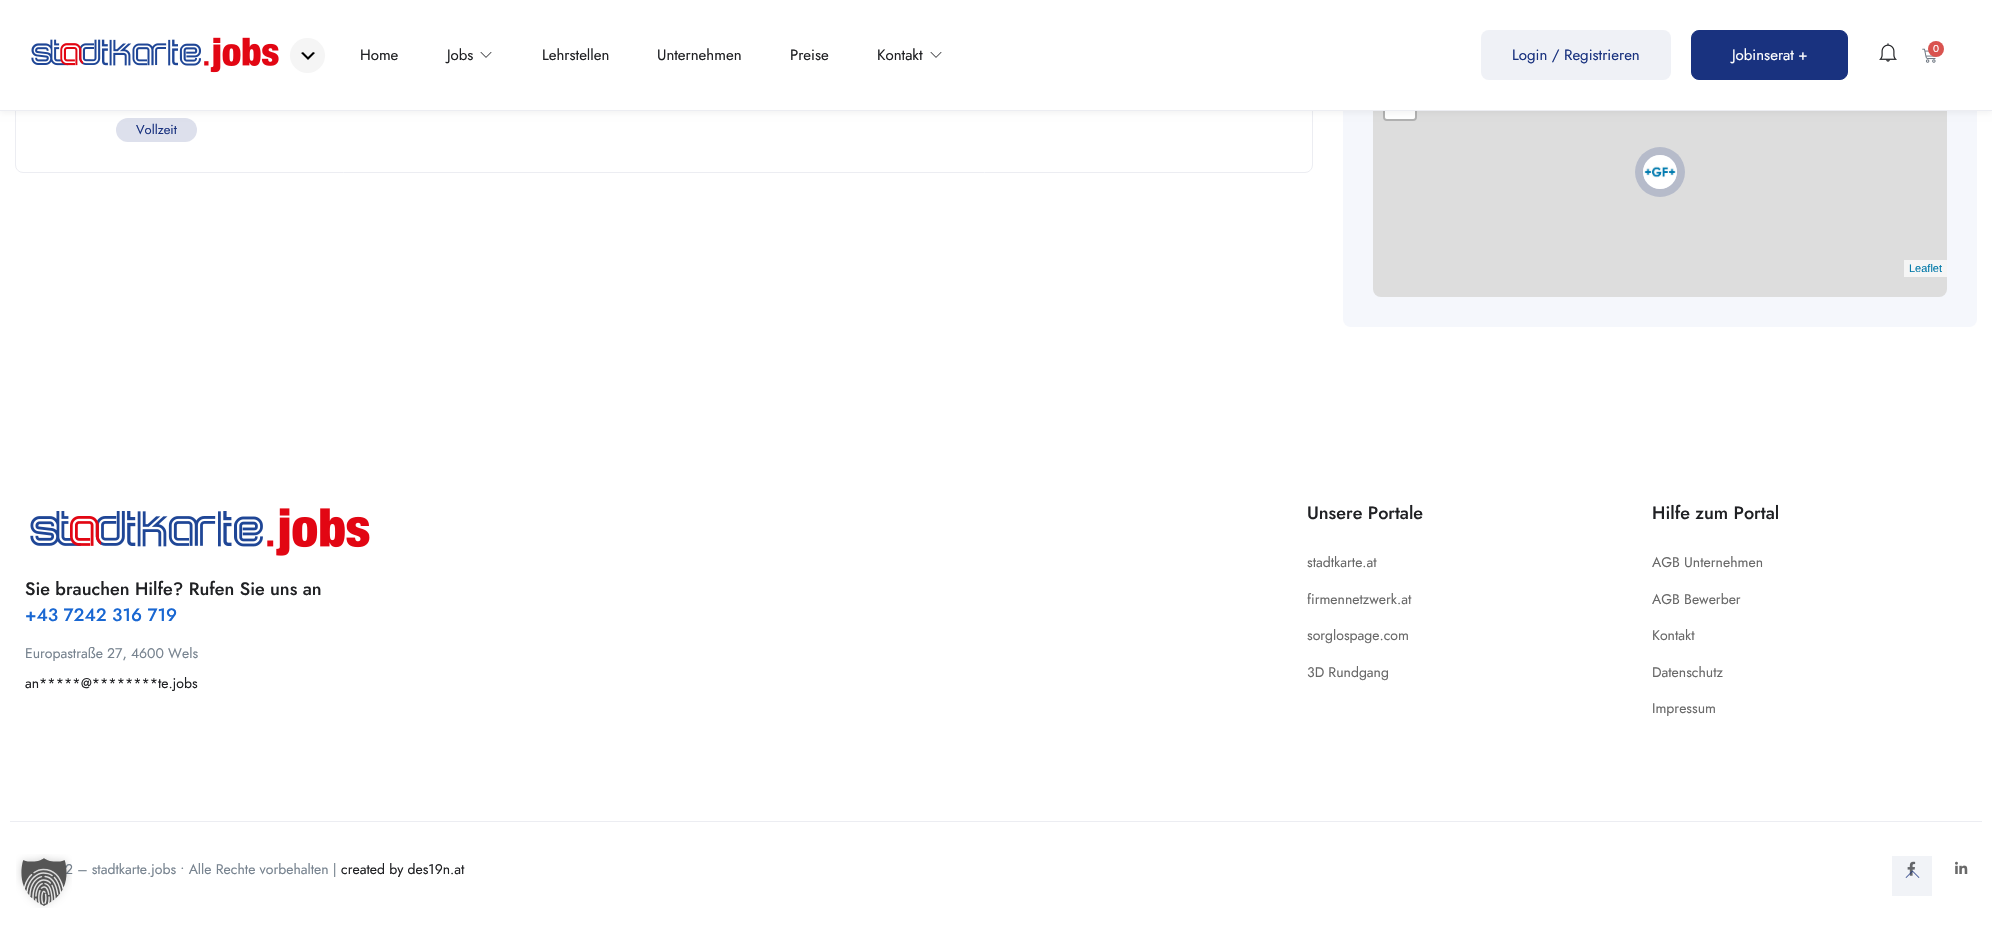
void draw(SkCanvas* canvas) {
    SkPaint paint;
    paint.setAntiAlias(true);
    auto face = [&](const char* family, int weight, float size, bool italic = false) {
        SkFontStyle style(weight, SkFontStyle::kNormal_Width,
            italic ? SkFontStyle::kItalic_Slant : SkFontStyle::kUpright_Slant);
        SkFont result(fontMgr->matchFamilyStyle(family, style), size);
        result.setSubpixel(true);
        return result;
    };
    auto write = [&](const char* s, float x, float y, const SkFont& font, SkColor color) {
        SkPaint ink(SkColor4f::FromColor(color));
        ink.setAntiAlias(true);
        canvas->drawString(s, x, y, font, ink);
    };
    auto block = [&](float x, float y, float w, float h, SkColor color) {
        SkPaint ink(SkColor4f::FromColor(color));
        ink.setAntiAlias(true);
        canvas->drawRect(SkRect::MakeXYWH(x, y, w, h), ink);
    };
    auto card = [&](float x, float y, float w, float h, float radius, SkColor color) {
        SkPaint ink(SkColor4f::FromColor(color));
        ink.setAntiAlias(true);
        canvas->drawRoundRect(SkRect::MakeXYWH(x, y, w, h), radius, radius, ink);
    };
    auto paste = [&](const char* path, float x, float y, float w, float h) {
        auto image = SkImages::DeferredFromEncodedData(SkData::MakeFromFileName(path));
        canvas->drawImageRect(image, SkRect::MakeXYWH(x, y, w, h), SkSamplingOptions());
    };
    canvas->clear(SK_ColorWHITE);
    paint.setStyle(SkPaint::kStroke_Style);
    paint.setStrokeWidth(1);
    paint.setColor(SkColorSetRGB(236, 237, 242));
    canvas->drawRoundRect(SkRect::MakeXYWH(15.5f, 20.5f, 1297, 152), 7.5f, 7.5f, paint);
    card(116, 118, 81, 24, 12, SkColorSetRGB(221, 224, 236));
    card(1343, -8, 634, 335, 8, SkColorSetRGB(245, 247, 252));
    card(1373, 47, 574, 250, 8, SkColorSetRGB(221, 221, 221));
    paint.setStrokeWidth(2);
    paint.setColor(SkColorSetRGB(177, 177, 177));
    canvas->drawRoundRect(SkRect::MakeXYWH(1384, 58, 32, 62), 3, 3, paint);
    paint.setStyle(SkPaint::kFill_Style);
    paint.setColor(SK_ColorWHITE);
    canvas->drawPath(SkPathBuilder().moveTo(1385, 89).lineTo(1415, 89).lineTo(1415, 117).cubicTo(1415, 118, 1414, 119, 1413, 119).lineTo(1387, 119).cubicTo(1386, 119, 1385, 118, 1385, 117).close().detach(), paint);
    paint.setColor(SkColorSetARGB(13, 0, 0, 0));
    paint.setMaskFilter(SkMaskFilter::MakeBlur(kNormal_SkBlurStyle, 3));
    canvas->drawRect(SkRect::MakeXYWH(0, 2, 1992, 111), paint);
    paint.setMaskFilter(nullptr);
    block(0, 0, 1992, 110, SK_ColorWHITE);
    block(0, 110, 1992, 1, SkColorSetRGB(236, 237, 242));
    paste("pic1.png", 31, 37, 248, 36);
    paint.setColor(SkColorSetRGB(245, 245, 245));
    canvas->drawCircle(307.5f, 55.5f, 17.5f, paint);
    paste("pic2.png", 301, 52, 14, 8);
    auto kFont1 = face("Jost", 400, 15);
    write("Home", 360, 60, kFont1, SkColorSetRGB(32, 33, 36));
    write("Jobs", 447, 60, kFont1, SkColorSetRGB(32, 33, 36));
    paste("pic3.png", 480, 52, 12, 6);
    write("Lehrstellen", 542, 60, kFont1, SkColorSetRGB(32, 33, 36));
    write("Unternehmen", 657, 60, kFont1, SkColorSetRGB(32, 33, 36));
    write("Preise", 790, 60, kFont1, SkColorSetRGB(32, 33, 36));
    write("Kontakt", 877, 60, kFont1, SkColorSetRGB(32, 33, 36));
    paste("pic3.png", 930, 52, 12, 6);
    card(1481, 30, 190, 50, 8, SkColorSetRGB(239, 241, 246));
    write("Login / Registrieren", 1512, 60, kFont1, SkColorSetRGB(25, 50, 127));
    paint.setColor(SkColorSetRGB(25, 50, 127));
    canvas->drawRoundRect(SkRect::MakeXYWH(1691.5f, 30.5f, 156, 49), 7.5f, 7.5f, paint);
    paint.setStyle(SkPaint::kStroke_Style);
    paint.setStrokeWidth(1);
    canvas->drawRoundRect(SkRect::MakeXYWH(1691.5f, 30.5f, 156, 49), 7.5f, 7.5f, paint);
    write("Jobinserat +", 1732, 60, kFont1, SK_ColorWHITE);
    paste("pic4.png", 1879, 43, 18, 19);
    paste("pic5.png", 1922, 48, 14, 15);
    paint.setStyle(SkPaint::kFill_Style);
    paint.setColor(SkColorSetRGB(217, 83, 79));
    canvas->drawCircle(1936, 49, 8, paint);
    auto kFont2 = face("Jost", 400, 10);
    write("0", 1933, 52, kFont2, SK_ColorWHITE);
    auto kFont3 = face("Jost", 400, 13);
    write("Vollzeit", 136, 134, kFont3, SkColorSetRGB(25, 50, 127));
    paint.setColor(SK_ColorWHITE);
    canvas->drawCircle(1660, 172, 17, paint);
    paint.setColor(SkColorSetARGB(51, 25, 50, 127));
    canvas->drawCircle(1660, 172, 25, paint);
    paste("pic6.png", 1643, 155, 34, 34);
    block(1904, 260, 43, 17, SkColorSetRGB(245, 245, 245));
    auto kFont4 = face("Liberation Sans", 400, 11);
    write("Leaflet", 1909, 272, kFont4, SkColorSetRGB(0, 120, 168));
    paste("pic7.png", 30, 508, 340, 48);
    auto kFont5 = face("Jost", 500, 18);
    write("Sie brauchen Hilfe? Rufen Sie uns an", 25, 595, kFont5, SkColorSetRGB(32, 33, 36));
    write("+43 7242 316 719", 25, 621, kFont5, SkColorSetRGB(25, 103, 210));
    auto kFont6 = face("Jost", 400, 14);
    write("Europastraße 27, 4600 Wels", 25, 658, kFont6, SkColorSetRGB(119, 131, 143));
    write("an*****", 25, 688, kFont6, SkColorSetRGB(32, 33, 36));
    write("@********", 81, 688, kFont6, SkColorSetRGB(32, 33, 36));
    write("te.jobs", 158, 688, kFont6, SkColorSetRGB(32, 33, 36));
    write("Unsere Portale", 1307, 519, kFont5, SkColorSetRGB(32, 33, 36));
    write("stadtkarte.at", 1307, 567, kFont6, SkColorSetRGB(105, 105, 105));
    write("firmennetzwerk.at", 1307, 604, kFont6, SkColorSetRGB(105, 105, 105));
    write("sorglospage.com", 1307, 640, kFont6, SkColorSetRGB(105, 105, 105));
    write("3D Rundgang", 1307, 677, kFont6, SkColorSetRGB(105, 105, 105));
    write("Hilfe zum Portal", 1652, 519, kFont5, SkColorSetRGB(32, 33, 36));
    write("AGB Unternehmen", 1652, 567, kFont6, SkColorSetRGB(105, 105, 105));
    write("AGB Bewerber", 1652, 604, kFont6, SkColorSetRGB(105, 105, 105));
    write("Kontakt", 1652, 640, kFont6, SkColorSetRGB(105, 105, 105));
    write("Datenschutz", 1652, 677, kFont6, SkColorSetRGB(105, 105, 105));
    write("Impressum", 1652, 713, kFont6, SkColorSetRGB(105, 105, 105));
    block(10, 821, 1972, 1, SkColorSetRGB(236, 237, 242));
    write("2 – stadtkarte.jobs • Alle Rechte vorbehalten |", 65, 874, kFont6, SkColorSetRGB(119, 131, 143));
    write("created by des19n.at", 341, 874, kFont6, SkColorSetRGB(32, 33, 36));
    paste("pic8.png", 1907, 861, 9, 15);
    paste("pic9.png", 1955, 861, 13, 13);
    block(1892, 856, 40, 40, SkColorSetARGB(15, 25, 50, 127));
    paste("pic10.png", 1905, 870, 15, 8);
    paste("pic11.png", 16, 854, 56, 54);
}
